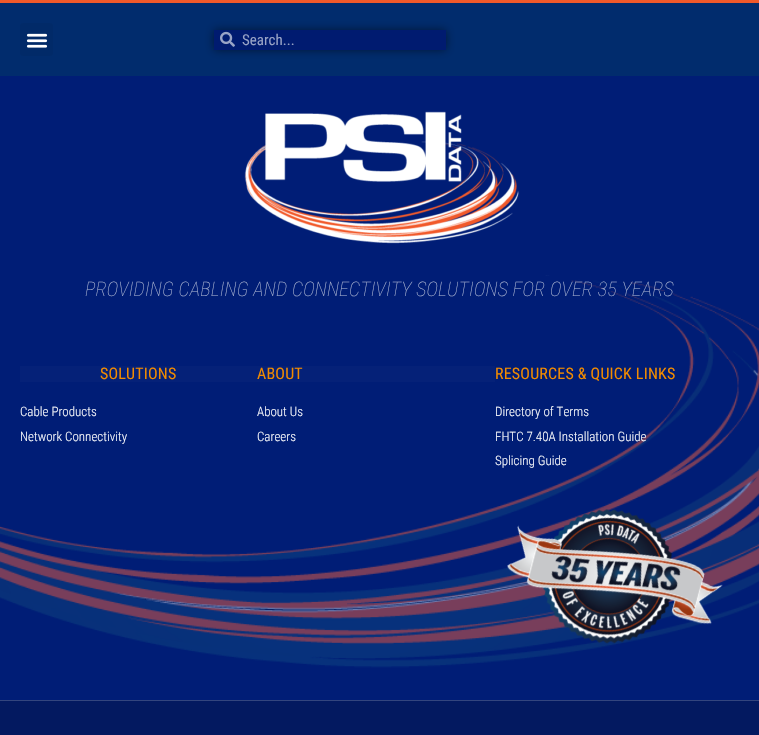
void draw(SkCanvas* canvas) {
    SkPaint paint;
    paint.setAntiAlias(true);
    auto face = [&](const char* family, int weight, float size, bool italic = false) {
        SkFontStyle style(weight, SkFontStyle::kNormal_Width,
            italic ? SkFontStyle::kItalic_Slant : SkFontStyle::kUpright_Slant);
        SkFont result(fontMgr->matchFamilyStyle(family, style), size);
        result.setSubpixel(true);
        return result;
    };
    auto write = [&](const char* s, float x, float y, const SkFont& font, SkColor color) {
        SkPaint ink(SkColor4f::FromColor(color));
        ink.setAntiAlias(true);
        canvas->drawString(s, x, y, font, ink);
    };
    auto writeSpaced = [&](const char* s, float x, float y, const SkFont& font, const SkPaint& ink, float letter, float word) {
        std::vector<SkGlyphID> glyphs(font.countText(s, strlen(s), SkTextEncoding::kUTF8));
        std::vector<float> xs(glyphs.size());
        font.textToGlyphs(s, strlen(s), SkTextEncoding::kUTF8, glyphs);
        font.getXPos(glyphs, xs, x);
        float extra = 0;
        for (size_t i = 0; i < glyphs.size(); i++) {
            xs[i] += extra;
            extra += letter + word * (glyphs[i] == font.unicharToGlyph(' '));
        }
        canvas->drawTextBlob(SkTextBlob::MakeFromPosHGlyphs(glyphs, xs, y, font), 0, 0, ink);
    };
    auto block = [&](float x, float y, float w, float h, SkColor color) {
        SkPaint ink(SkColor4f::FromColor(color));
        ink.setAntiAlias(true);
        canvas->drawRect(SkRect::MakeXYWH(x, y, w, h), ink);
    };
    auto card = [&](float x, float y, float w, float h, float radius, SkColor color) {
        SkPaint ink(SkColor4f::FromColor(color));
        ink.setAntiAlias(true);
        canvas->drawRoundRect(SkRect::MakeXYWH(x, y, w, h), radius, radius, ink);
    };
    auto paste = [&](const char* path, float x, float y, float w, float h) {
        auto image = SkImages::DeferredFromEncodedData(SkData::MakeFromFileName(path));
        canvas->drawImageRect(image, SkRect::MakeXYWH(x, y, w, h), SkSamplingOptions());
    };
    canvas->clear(SkColorSetRGB(0, 29, 118));
    block(0, 3, 759, 73, SkColorSetRGB(1, 44, 109));
    block(0, 0, 759, 3, SkColorSetRGB(241, 89, 42));
    card(20, 23, 33, 33, 3, SkColorSetRGB(1, 42, 104));
    paste("pic1.png", 26, 33, 22, 15);
    paint.setColor(SkColorSetARGB(128, 0, 0, 0));
    paint.setMaskFilter(SkMaskFilter::MakeBlur(kNormal_SkBlurStyle, 5));
    canvas->drawRect(SkRect::MakeXYWH(214, 30, 232, 20), paint);
    paint.setMaskFilter(nullptr);
    block(214, 30, 232, 20, SkColorSetRGB(0, 27, 112));
    paste("pic2.png", 220, 31, 15, 16);
    auto kFont1 = face("Roboto Condensed", 400, 15);
    write("Search...", 242, 45, kFont1, SkColorSetRGB(153, 164, 198));
    paste("pic3.png", 0, 275, 759, 393);
    paste("pic4.png", 244, 111, 275, 133);
    auto kFont2 = face("Roboto Condensed", 100, 20, true);
    paint.setColor(SkColorSetRGB(166, 176, 207));
    writeSpaced("PROVIDING CABLING AND CONNECTIVITY SOLUTIONS FOR OVER 35 YEARS", 85, 296, kFont2, paint, 0.2f, 0);
    block(20, 366, 475, 16, SkColorSetRGB(5, 33, 120));
    auto kFont3 = face("Roboto Condensed", 400, 16);
    paint.setColor(SkColorSetRGB(242, 139, 0));
    writeSpaced("SOLUTIONS", 100, 379, kFont3, paint, 0.2f, 0);
    auto kFont4 = face("Roboto Condensed", 300, 13);
    write("Cable Products", 20, 416, kFont4, SK_ColorWHITE);
    write("Network Connectivity", 20, 441, kFont4, SK_ColorWHITE);
    writeSpaced("ABOUT", 257, 379, kFont3, paint, 0.2f, 0);
    write("About Us", 257, 416, kFont4, SK_ColorWHITE);
    write("Careers", 257, 441, kFont4, SK_ColorWHITE);
    writeSpaced("RESOURCES & QUICK LINKS", 495, 379, kFont3, paint, 0.2f, 0);
    write("Directory of Terms", 495, 416, kFont4, SK_ColorWHITE);
    write("FHTC 7.40A Installation Guide", 495, 441, kFont4, SK_ColorWHITE);
    write("Splicing Guide", 495, 465, kFont4, SK_ColorWHITE);
    paste("pic5.png", 507, 509, 216, 135);
    block(0, 701, 759, 34, SkColorSetRGB(3, 25, 96));
    block(0, 700, 759, 1, SkColorSetRGB(51, 69, 126));
}
